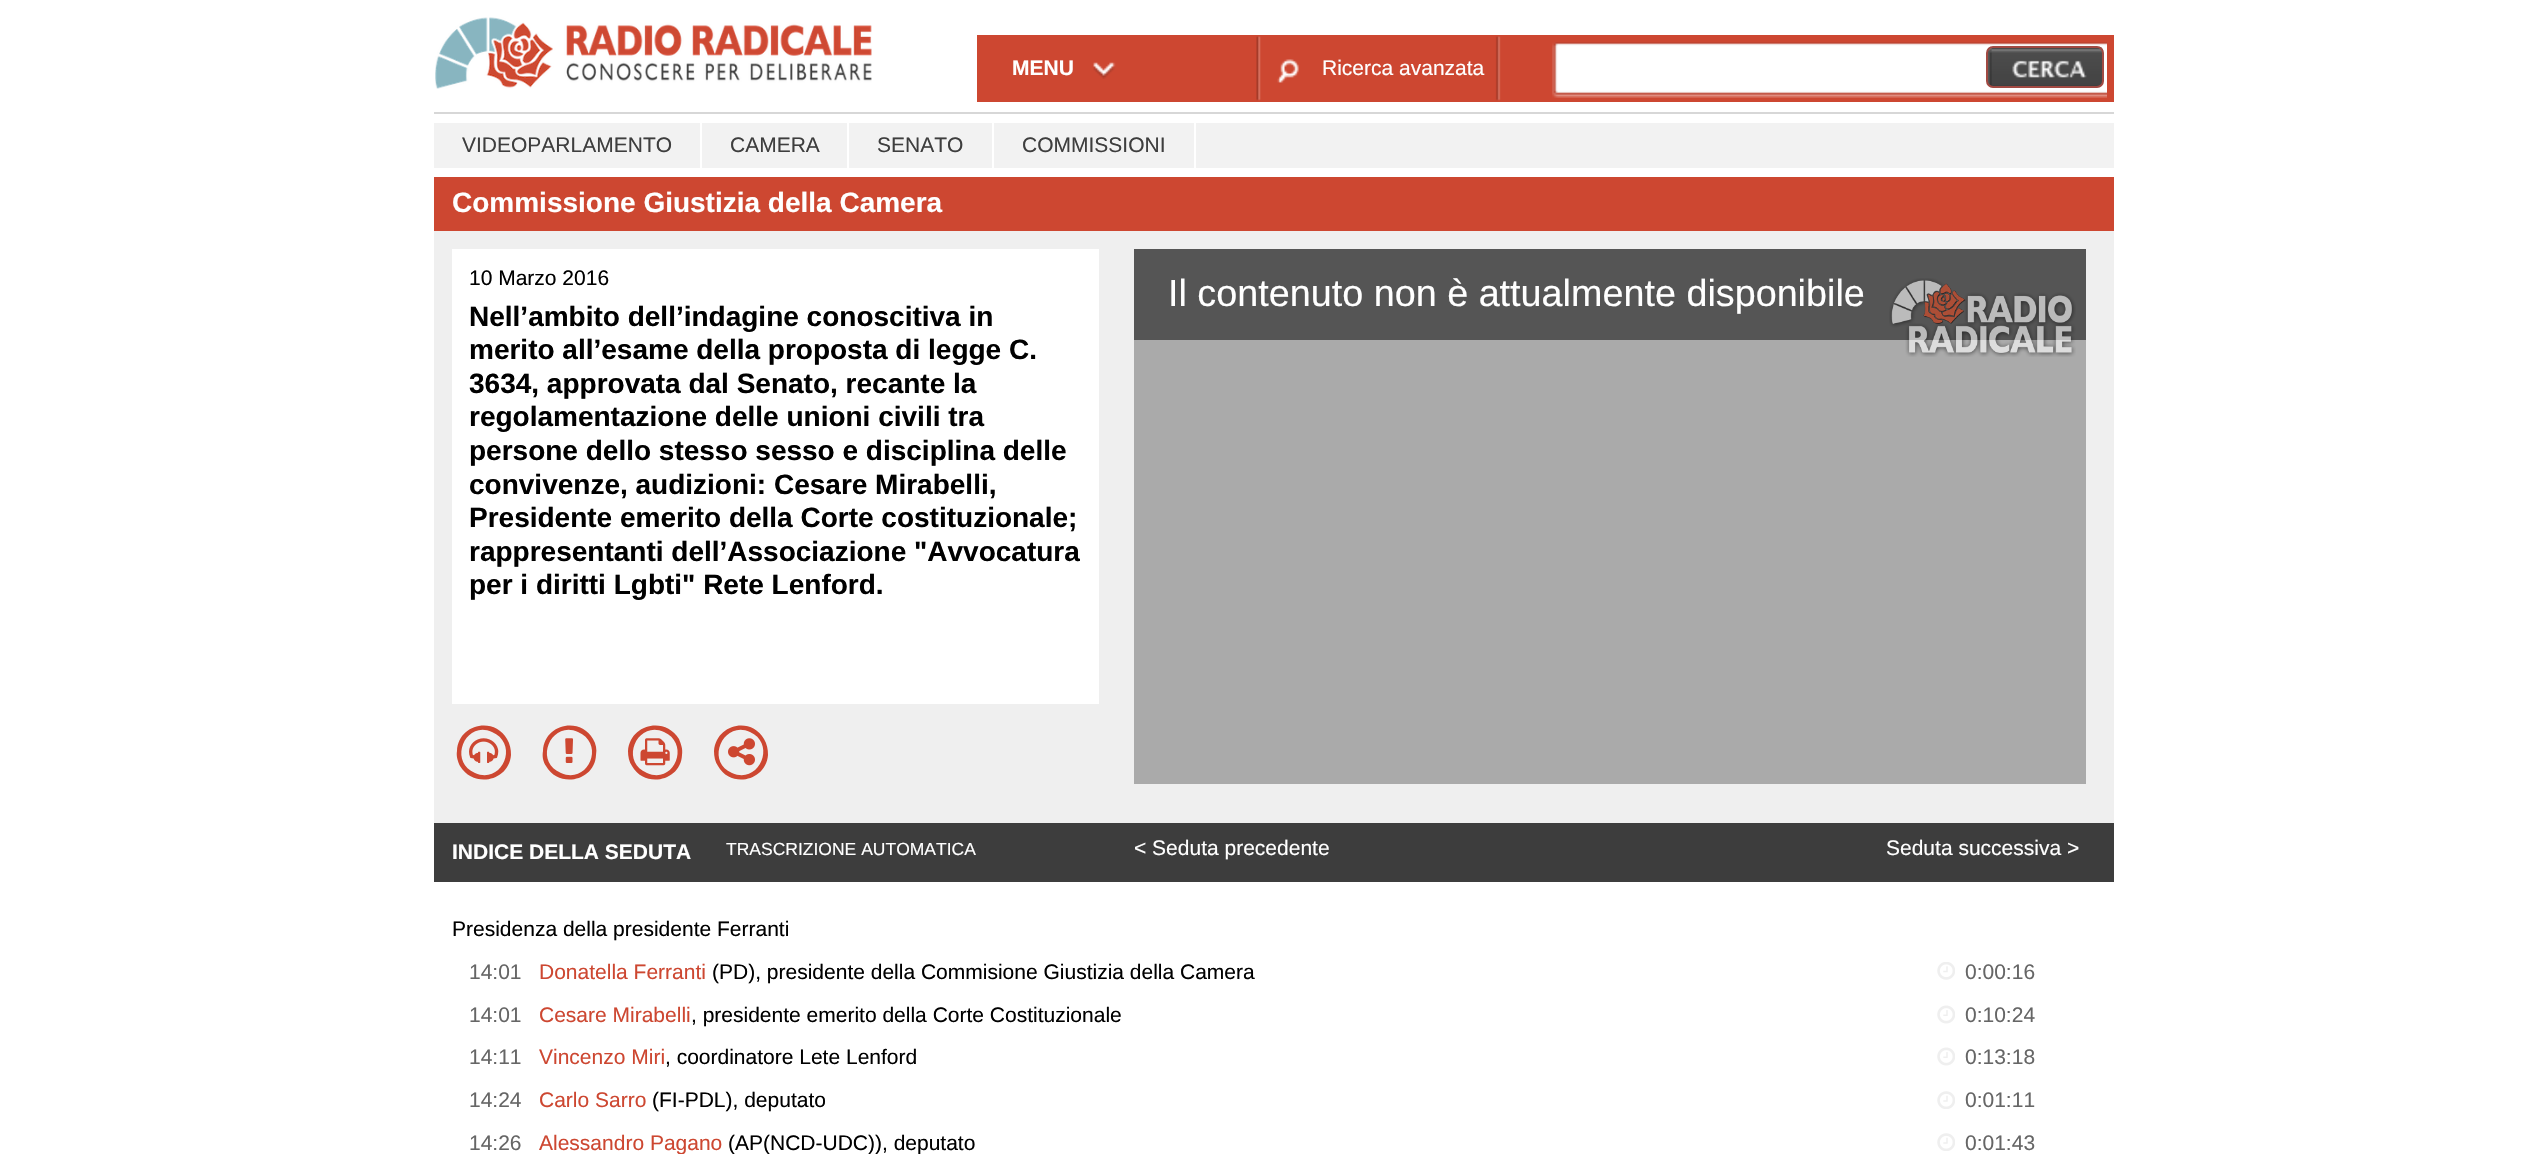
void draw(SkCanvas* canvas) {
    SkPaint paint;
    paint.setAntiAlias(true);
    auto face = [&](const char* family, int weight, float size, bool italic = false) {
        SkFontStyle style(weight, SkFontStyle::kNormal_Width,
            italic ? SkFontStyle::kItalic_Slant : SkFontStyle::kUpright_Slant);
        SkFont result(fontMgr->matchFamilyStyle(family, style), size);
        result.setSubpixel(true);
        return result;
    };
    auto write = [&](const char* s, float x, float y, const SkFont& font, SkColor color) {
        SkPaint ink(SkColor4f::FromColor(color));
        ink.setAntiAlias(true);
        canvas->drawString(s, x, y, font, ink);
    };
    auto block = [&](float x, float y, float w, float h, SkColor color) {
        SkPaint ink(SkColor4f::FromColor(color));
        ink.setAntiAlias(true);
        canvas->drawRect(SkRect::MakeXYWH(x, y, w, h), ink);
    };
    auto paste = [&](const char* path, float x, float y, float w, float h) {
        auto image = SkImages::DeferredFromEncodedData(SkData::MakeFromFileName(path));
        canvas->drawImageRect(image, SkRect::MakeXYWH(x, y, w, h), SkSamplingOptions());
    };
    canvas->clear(SK_ColorWHITE);
    block(434, 112, 1680, 2, SkColorSetRGB(215, 215, 215));
    paste("pic1.png", 435, 17, 437, 72);
    block(977, 35, 1137, 67, SkColorSetRGB(205, 71, 49));
    paste("pic2.png", 1093, 62, 23, 17);
    auto kFont1 = face("Liberation Sans", 700, 21);
    write("MENU", 1012, 75, kFont1, SK_ColorWHITE);
    paste("pic3.png", 1256, 36, 245, 65);
    auto kFont2 = face("Liberation Sans", 400, 21);
    write("Ricerca avanzata", 1322, 75, kFont2, SK_ColorWHITE);
    paste("pic4.png", 1552, 42, 555, 56);
    paste("pic5.png", 1988, 47, 116, 41);
    paint.setStyle(SkPaint::kStroke_Style);
    paint.setStrokeWidth(2);
    paint.setColor(SkColorSetRGB(161, 73, 66));
    canvas->drawRoundRect(SkRect::MakeXYWH(1987, 47, 116, 40), 6, 6, paint);
    block(434, 123, 1680, 45, SkColorSetRGB(242, 242, 242));
    block(700, 123, 2, 45, SK_ColorWHITE);
    write("VIDEOPARLAMENTO", 462, 152, kFont2, SkColorSetRGB(62, 62, 62));
    block(847, 123, 2, 45, SK_ColorWHITE);
    write("CAMERA", 730, 152, kFont2, SkColorSetRGB(62, 62, 62));
    block(992, 123, 2, 45, SK_ColorWHITE);
    write("SENATO", 877, 152, kFont2, SkColorSetRGB(62, 62, 62));
    block(1194, 123, 2, 45, SK_ColorWHITE);
    write("COMMISSIONI", 1022, 152, kFont2, SkColorSetRGB(62, 62, 62));
    block(434, 177, 1680, 54, SkColorSetRGB(205, 71, 49));
    auto kFont3 = face("Liberation Sans", 700, 28);
    write("Commissione Giustizia della Camera", 452, 212, kFont3, SK_ColorWHITE);
    block(434, 231, 1680, 592, SkColorSetRGB(239, 239, 239));
    block(452, 249, 647, 455, SK_ColorWHITE);
    write("10 Marzo 2016", 469, 285, kFont2, SK_ColorBLACK);
    write("Nell’ambito dell’indagine conoscitiva in", 469, 326, kFont3, SK_ColorBLACK);
    write("merito all’esame della proposta di legge C.", 469, 359, kFont3, SK_ColorBLACK);
    write("3634, approvata dal Senato, recante la", 469, 393, kFont3, SK_ColorBLACK);
    write("regolamentazione delle unioni civili tra", 469, 426, kFont3, SK_ColorBLACK);
    write("persone dello stesso sesso e disciplina delle", 469, 460, kFont3, SK_ColorBLACK);
    write("convivenze, audizioni: Cesare Mirabelli,", 469, 494, kFont3, SK_ColorBLACK);
    write("Presidente emerito della Corte costituzionale;", 469, 527, kFont3, SK_ColorBLACK);
    write("rappresentanti dell’Associazione \"Avvocatura", 469, 561, kFont3, SK_ColorBLACK);
    write("per i diritti Lgbti\" Rete Lenford.", 469, 594, kFont3, SK_ColorBLACK);
    paint.setStyle(SkPaint::kFill_Style);
    paint.setColor(SkColorSetRGB(205, 71, 49));
    canvas->drawPath(SkPathBuilder().moveTo(492, 732).cubicTo(465, 720, 448, 762, 475, 773).cubicTo(502, 785, 520, 744, 492, 732).close().moveTo(507, 739).cubicTo(510, 744, 511, 749, 511, 755).cubicTo(509, 781, 474, 789, 460, 766).cubicTo(458, 762, 456, 756, 457, 751).cubicTo(458, 724, 494, 716, 507, 739).close().detach(), paint);
    paste("pic6.png", 469, 738, 30, 25);
    canvas->drawPath(SkPathBuilder().moveTo(578, 732).cubicTo(551, 720, 533, 762, 561, 773).cubicTo(588, 785, 606, 744, 578, 732).close().moveTo(593, 739).cubicTo(596, 744, 597, 749, 596, 755).cubicTo(595, 781, 559, 789, 546, 766).cubicTo(543, 762, 542, 756, 543, 751).cubicTo(544, 724, 580, 716, 593, 739).close().detach(), paint);
    paste("pic7.png", 565, 738, 8, 25);
    canvas->drawPath(SkPathBuilder().moveTo(664, 732).cubicTo(637, 720, 619, 762, 647, 773).cubicTo(674, 785, 691, 744, 664, 732).close().moveTo(679, 739).cubicTo(681, 744, 683, 749, 682, 755).cubicTo(681, 781, 645, 789, 632, 766).cubicTo(629, 762, 628, 756, 628, 751).cubicTo(630, 724, 665, 716, 679, 739).close().detach(), paint);
    paste("pic8.png", 640, 738, 30, 28);
    canvas->drawPath(SkPathBuilder().moveTo(750, 732).cubicTo(723, 720, 705, 762, 732, 773).cubicTo(759, 785, 777, 744, 750, 732).close().moveTo(764, 739).cubicTo(767, 744, 768, 749, 768, 755).cubicTo(766, 781, 731, 789, 718, 766).cubicTo(715, 762, 714, 756, 714, 751).cubicTo(716, 724, 751, 716, 764, 739).close().detach(), paint);
    paste("pic9.png", 728, 738, 27, 28);
    block(1134, 340, 952, 444, SkColorSetRGB(170, 170, 170));
    block(1134, 249, 952, 91, SkColorSetRGB(85, 85, 85));
    auto kFont4 = face("Liberation Sans", 400, 37.75f);
    write("Il contenuto non è attualmente disponibile", 1168, 306, kFont4, SK_ColorWHITE);
    paste("pic10.png", 1889, 278, 187, 79);
    block(434, 823, 1680, 59, SkColorSetRGB(61, 61, 61));
    write("INDICE DELLA SEDUTA", 452, 859, kFont1, SK_ColorWHITE);
    auto kFont5 = face("Liberation Sans", 400, 17.5f);
    write("TRASCRIZIONE AUTOMATICA", 726, 855, kFont5, SK_ColorWHITE);
    write("< Seduta precedente", 1134, 855, kFont2, SK_ColorWHITE);
    write("Seduta successiva >", 1886, 855, kFont2, SK_ColorWHITE);
    write("Presidenza della presidente Ferranti", 452, 936, kFont2, SK_ColorBLACK);
    write("14:01", 469, 979, kFont2, SkColorSetRGB(102, 102, 102));
    write("Donatella Ferranti", 539, 979, kFont2, SkColorSetRGB(205, 71, 49));
    write("(PD), presidente della Commisione Giustizia della Camera", 712, 979, kFont2, SK_ColorBLACK);
    paste("pic11.png", 1937, 962, 18, 18);
    write("0:00:16", 1965, 979, kFont2, SkColorSetRGB(102, 102, 102));
    write("14:01", 469, 1022, kFont2, SkColorSetRGB(102, 102, 102));
    write("Cesare Mirabelli", 539, 1022, kFont2, SkColorSetRGB(205, 71, 49));
    write(", presidente emerito della Corte Costituzionale", 691, 1022, kFont2, SK_ColorBLACK);
    paste("pic12.png", 1937, 1005, 18, 19);
    write("0:10:24", 1965, 1022, kFont2, SkColorSetRGB(102, 102, 102));
    write("14:11", 469, 1064, kFont2, SkColorSetRGB(102, 102, 102));
    write("Vincenzo Miri", 539, 1064, kFont2, SkColorSetRGB(205, 71, 49));
    write(", coordinatore Lete Lenford", 665, 1064, kFont2, SK_ColorBLACK);
    paste("pic12.png", 1937, 1047, 18, 19);
    write("0:13:18", 1965, 1064, kFont2, SkColorSetRGB(102, 102, 102));
    write("14:24", 469, 1107, kFont2, SkColorSetRGB(102, 102, 102));
    write("Carlo Sarro", 539, 1107, kFont2, SkColorSetRGB(205, 71, 49));
    write("(FI-PDL), deputato", 652, 1107, kFont2, SK_ColorBLACK);
    paste("pic13.png", 1937, 1091, 18, 18);
    write("0:01:11", 1965, 1107, kFont2, SkColorSetRGB(102, 102, 102));
    write("14:26", 469, 1150, kFont2, SkColorSetRGB(102, 102, 102));
    write("Alessandro Pagano", 539, 1150, kFont2, SkColorSetRGB(205, 71, 49));
    write("(AP(NCD-UDC)), deputato", 728, 1150, kFont2, SK_ColorBLACK);
    paste("pic13.png", 1937, 1133, 18, 18);
    write("0:01:43", 1965, 1150, kFont2, SkColorSetRGB(102, 102, 102));
}
